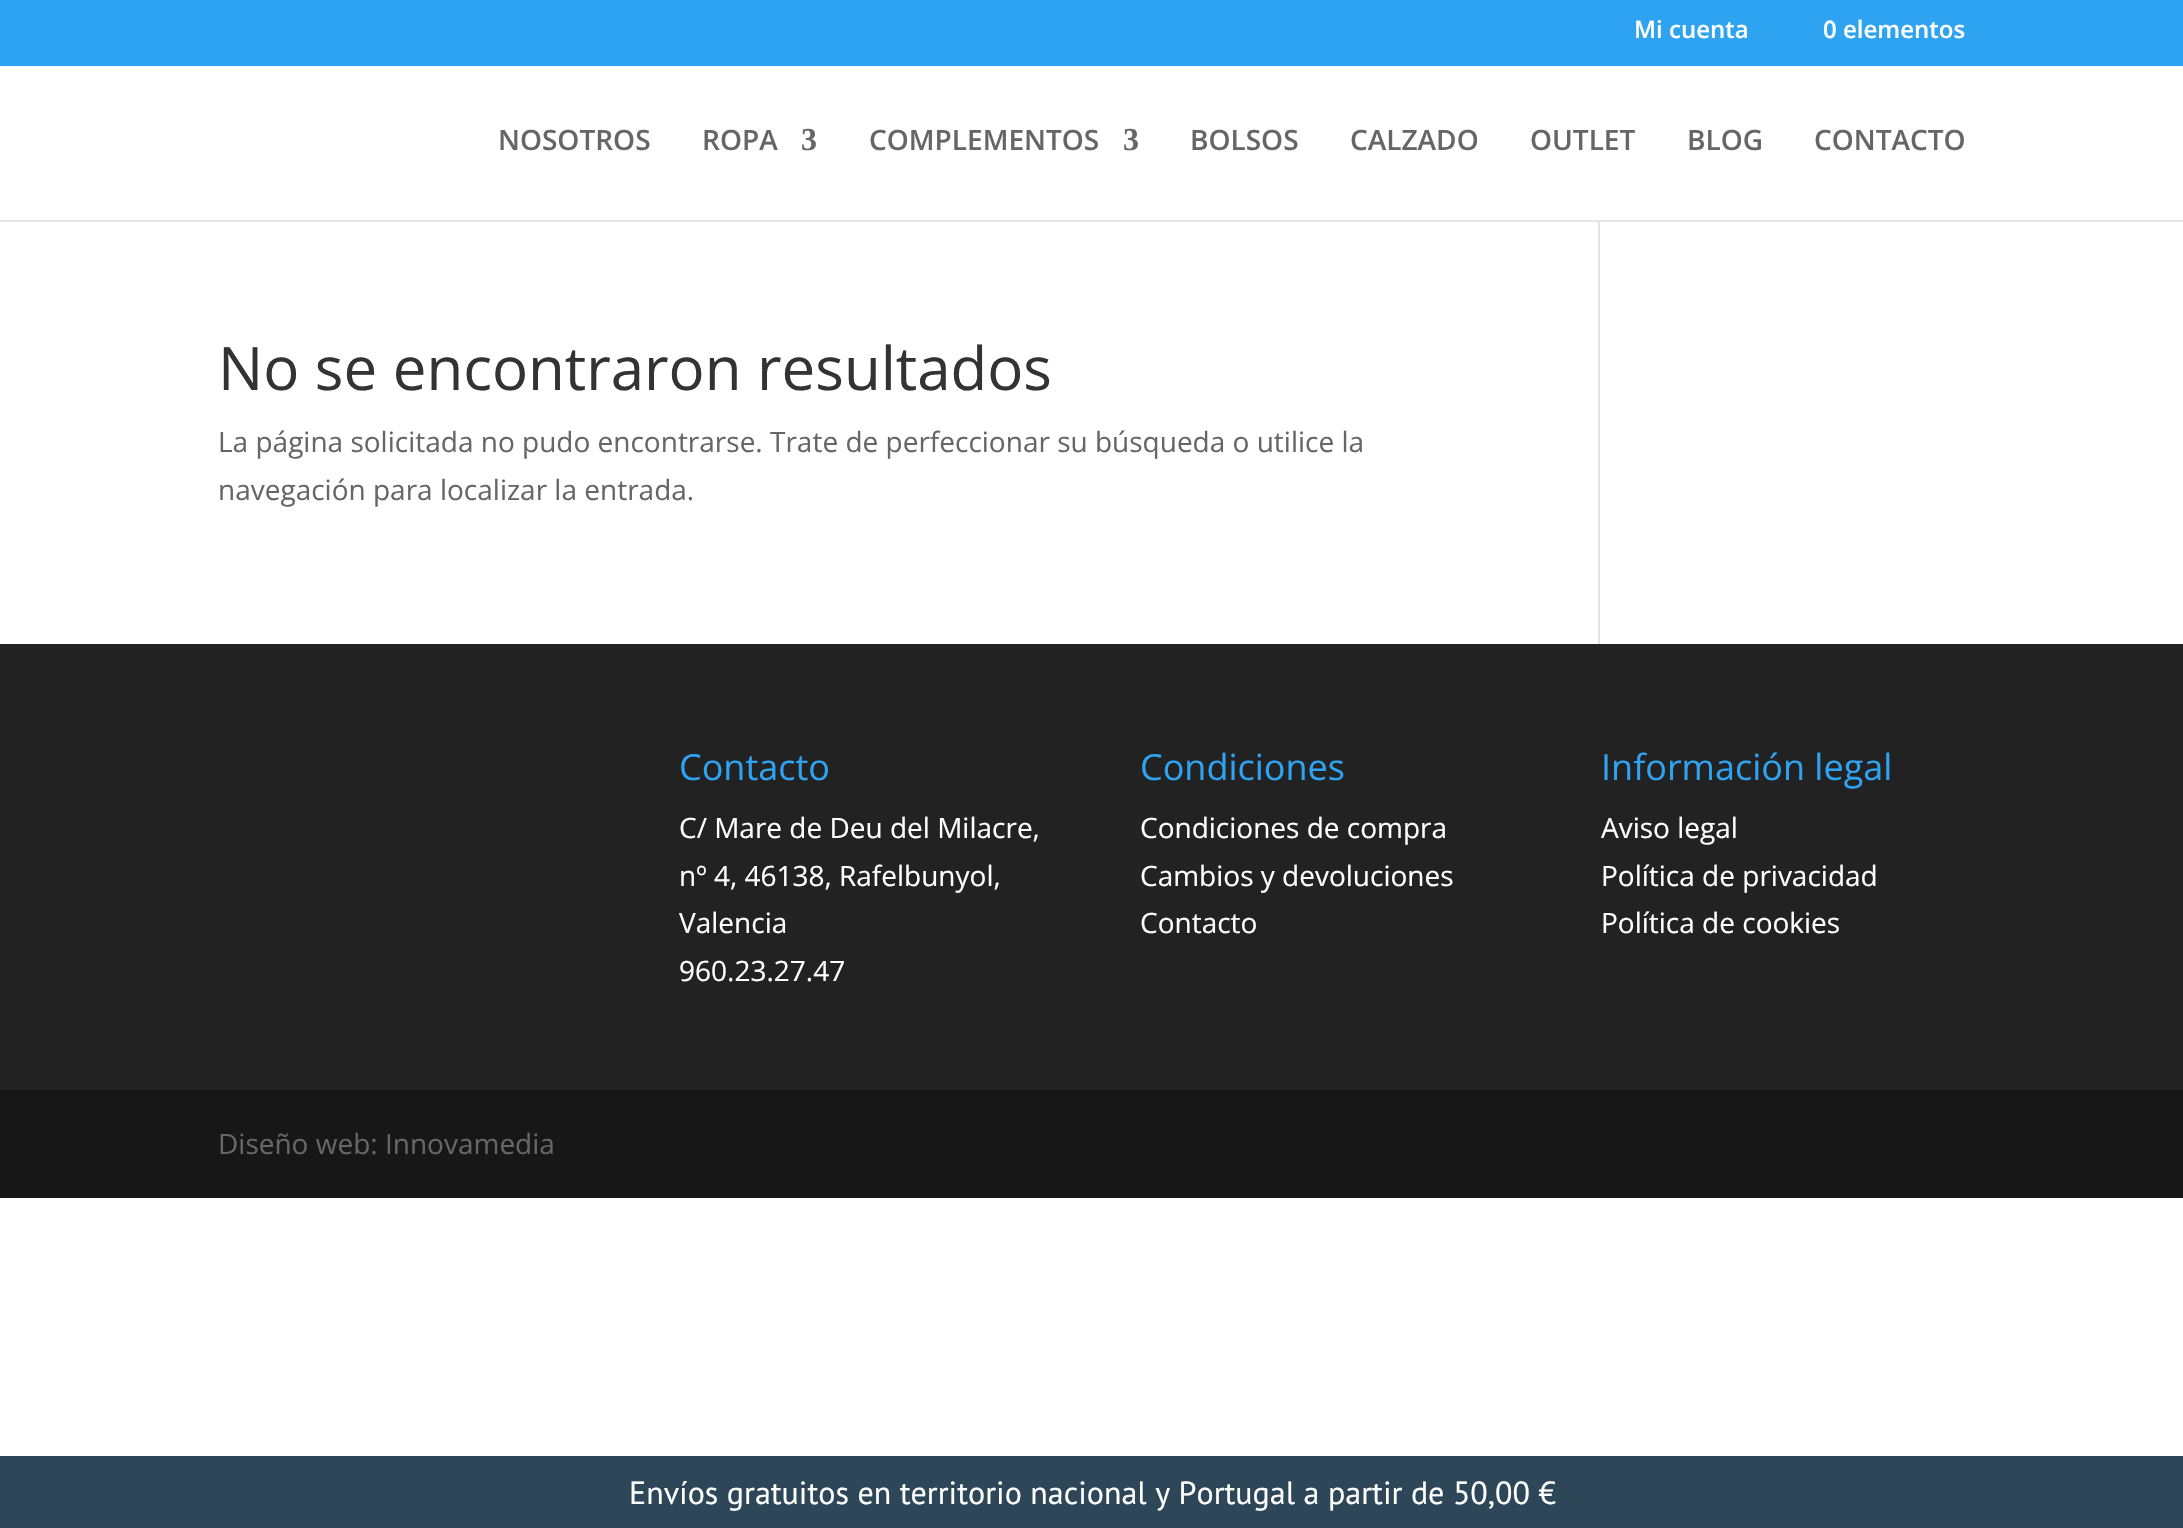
void draw(SkCanvas* canvas) {
    SkPaint paint;
    paint.setAntiAlias(true);
    auto face = [&](const char* family, int weight, float size, bool italic = false) {
        SkFontStyle style(weight, SkFontStyle::kNormal_Width,
            italic ? SkFontStyle::kItalic_Slant : SkFontStyle::kUpright_Slant);
        SkFont result(fontMgr->matchFamilyStyle(family, style), size);
        result.setSubpixel(true);
        return result;
    };
    auto write = [&](const char* s, float x, float y, const SkFont& font, SkColor color) {
        SkPaint ink(SkColor4f::FromColor(color));
        ink.setAntiAlias(true);
        canvas->drawString(s, x, y, font, ink);
    };
    auto block = [&](float x, float y, float w, float h, SkColor color) {
        SkPaint ink(SkColor4f::FromColor(color));
        ink.setAntiAlias(true);
        canvas->drawRect(SkRect::MakeXYWH(x, y, w, h), ink);
    };
    canvas->clear(SK_ColorWHITE);
    block(0, 0, 2183, 66, SkColorSetRGB(46, 163, 242));
    auto kFont1 = face("Open Sans", 600, 24);
    write("Mi cuenta", 1634, 38, kFont1, SK_ColorWHITE);
    write("0 elementos", 1823, 38, kFont1, SK_ColorWHITE);
    block(0, 220, 2183, 2, SkColorSetRGB(230, 230, 230));
    auto kFont2 = face("Open Sans", 600, 28);
    write("NOSOTROS", 498, 150, kFont2, SkColorSetRGB(102, 102, 102));
    write("ROPA", 702, 150, kFont2, SkColorSetRGB(102, 102, 102));
    auto kFont3 = face("Liberation Serif", 700, 32);
    write("3", 801, 150, kFont3, SkColorSetRGB(102, 102, 102));
    write("COMPLEMENTOS", 869, 150, kFont2, SkColorSetRGB(102, 102, 102));
    write("3", 1123, 150, kFont3, SkColorSetRGB(102, 102, 102));
    write("BOLSOS", 1190, 150, kFont2, SkColorSetRGB(102, 102, 102));
    write("CALZADO", 1350, 150, kFont2, SkColorSetRGB(102, 102, 102));
    write("OUTLET", 1530, 150, kFont2, SkColorSetRGB(102, 102, 102));
    write("BLOG", 1687, 150, kFont2, SkColorSetRGB(102, 102, 102));
    write("CONTACTO", 1814, 150, kFont2, SkColorSetRGB(102, 102, 102));
    auto kFont4 = face("Open Sans", 400, 60);
    write("No se encontraron resultados", 218, 390, kFont4, SkColorSetRGB(51, 51, 51));
    auto kFont5 = face("Open Sans", 400, 28);
    write("La página solicitada no pudo encontrarse. Trate de perfeccionar su búsqueda o utilice la", 218, 452, kFont5, SkColorSetRGB(102, 102, 102));
    write("navegación para localizar la entrada.", 218, 500, kFont5, SkColorSetRGB(102, 102, 102));
    block(1598, 222, 2, 422, SkColorSetRGB(226, 226, 226));
    block(0, 644, 2183, 446, SkColorSetRGB(34, 34, 34));
    auto kFont6 = face("Open Sans", 400, 36);
    write("Contacto", 679, 780, kFont6, SkColorSetRGB(46, 163, 242));
    write("C/ Mare de Deu del Milacre,", 679, 838, kFont5, SK_ColorWHITE);
    write("nº 4, 46138, Rafelbunyol,", 679, 886, kFont5, SK_ColorWHITE);
    write("Valencia", 679, 933, kFont5, SK_ColorWHITE);
    write("960.23.27.47", 679, 981, kFont5, SK_ColorWHITE);
    write("Condiciones", 1140, 780, kFont6, SkColorSetRGB(46, 163, 242));
    write("Condiciones de compra", 1140, 838, kFont5, SK_ColorWHITE);
    write("Cambios y devoluciones", 1140, 886, kFont5, SK_ColorWHITE);
    write("Contacto", 1140, 933, kFont5, SK_ColorWHITE);
    write("Información legal", 1601, 780, kFont6, SkColorSetRGB(46, 163, 242));
    write("Aviso legal", 1601, 838, kFont5, SK_ColorWHITE);
    write("Política de privacidad", 1601, 886, kFont5, SK_ColorWHITE);
    write("Política de cookies", 1601, 933, kFont5, SK_ColorWHITE);
    block(0, 1090, 2183, 108, SkColorSetRGB(23, 23, 23));
    write("Diseño web: Innovamedia", 218, 1154, kFont5, SkColorSetRGB(102, 102, 102));
    block(0, 1456, 2183, 72, SkColorSetRGB(45, 71, 88));
    auto kFont7 = face("PT Sans", 400, 32);
    write("Envíos gratuitos en territorio nacional y Portugal a partir de 50,00 €", 629, 1504, kFont7, SK_ColorWHITE);
}
